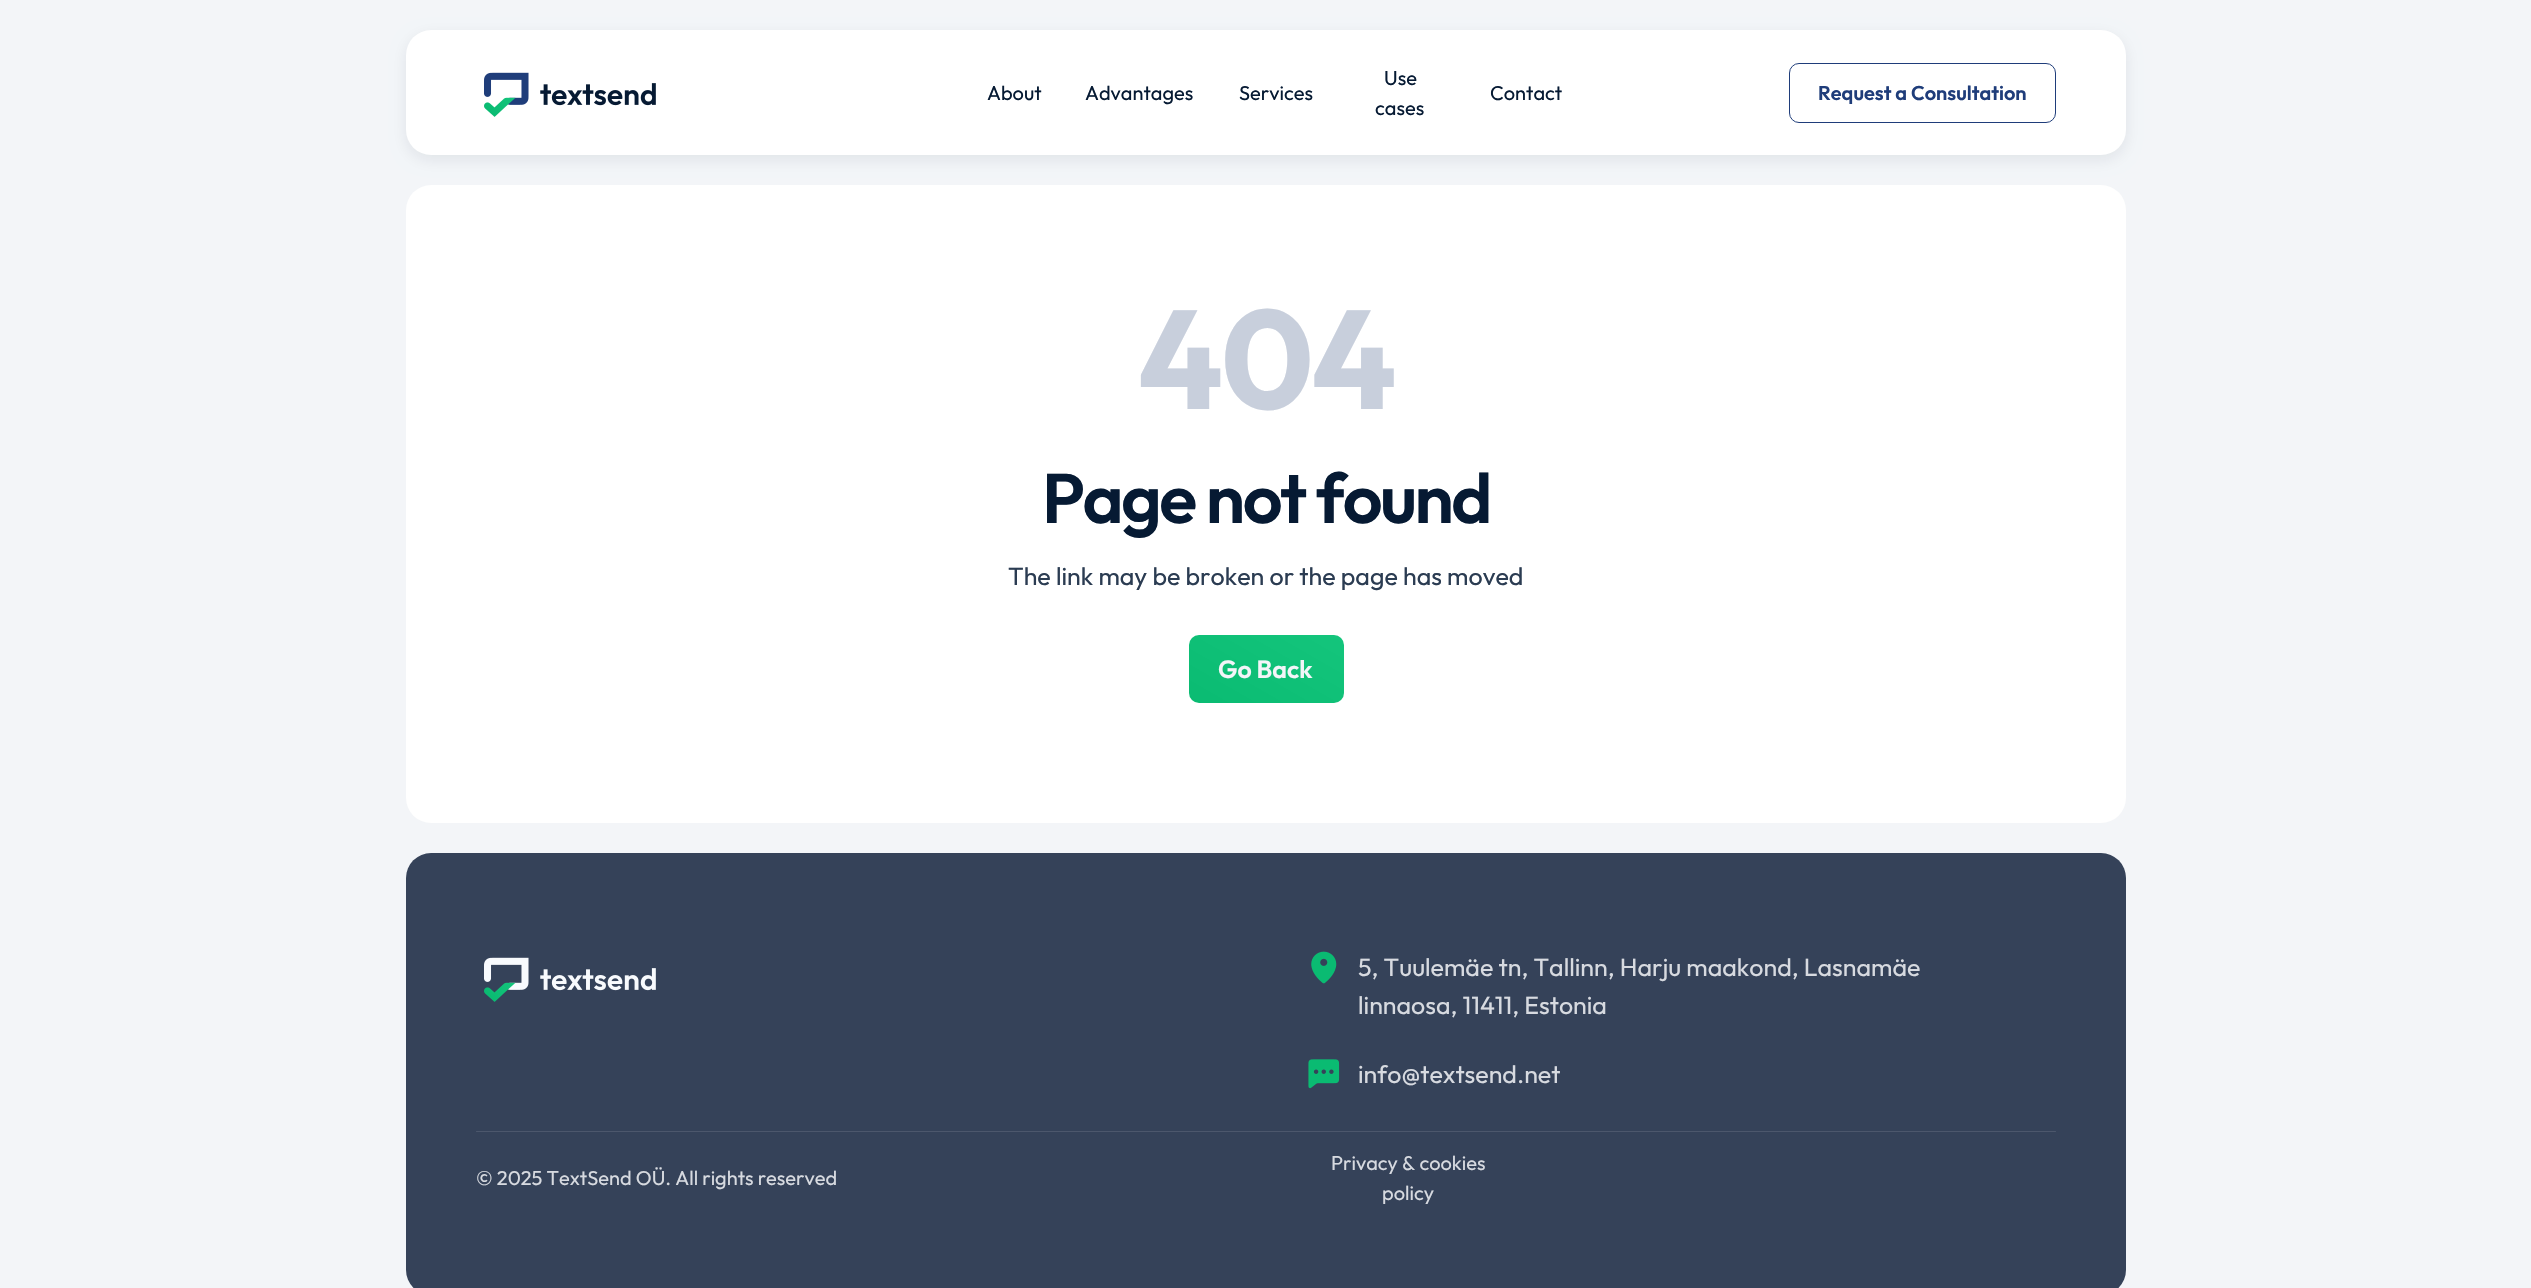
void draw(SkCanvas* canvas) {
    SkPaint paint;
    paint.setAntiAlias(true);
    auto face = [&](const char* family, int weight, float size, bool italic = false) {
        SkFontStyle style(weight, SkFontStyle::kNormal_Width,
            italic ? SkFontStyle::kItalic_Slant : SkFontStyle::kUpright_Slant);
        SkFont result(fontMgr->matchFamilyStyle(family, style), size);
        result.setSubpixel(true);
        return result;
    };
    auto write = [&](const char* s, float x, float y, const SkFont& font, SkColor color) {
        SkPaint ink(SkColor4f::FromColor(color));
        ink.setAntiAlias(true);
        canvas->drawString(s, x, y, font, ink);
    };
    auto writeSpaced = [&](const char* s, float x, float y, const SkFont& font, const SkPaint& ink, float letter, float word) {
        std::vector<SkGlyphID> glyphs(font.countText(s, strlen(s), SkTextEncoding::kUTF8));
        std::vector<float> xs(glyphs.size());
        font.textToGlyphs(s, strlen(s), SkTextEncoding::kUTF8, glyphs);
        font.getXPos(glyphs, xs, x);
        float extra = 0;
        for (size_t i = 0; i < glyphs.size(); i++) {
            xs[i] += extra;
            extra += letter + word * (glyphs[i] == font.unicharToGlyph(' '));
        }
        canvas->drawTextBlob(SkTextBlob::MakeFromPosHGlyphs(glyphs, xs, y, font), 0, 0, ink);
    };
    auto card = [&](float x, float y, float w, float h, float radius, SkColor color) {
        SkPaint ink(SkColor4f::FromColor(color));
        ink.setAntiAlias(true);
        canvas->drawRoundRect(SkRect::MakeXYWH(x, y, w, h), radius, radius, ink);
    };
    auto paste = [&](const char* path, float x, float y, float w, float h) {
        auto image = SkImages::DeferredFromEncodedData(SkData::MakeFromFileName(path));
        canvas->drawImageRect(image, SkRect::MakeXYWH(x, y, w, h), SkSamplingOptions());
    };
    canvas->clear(SkColorSetRGB(243, 245, 248));
    paint.setColor(SkColorSetARGB(20, 6, 26, 51));
    paint.setMaskFilter(SkMaskFilter::MakeBlur(kNormal_SkBlurStyle, 7.5f));
    canvas->drawRoundRect(SkRect::MakeXYWH(406, 35, 1720, 125), 25, 25, paint);
    paint.setMaskFilter(nullptr);
    card(406, 30, 1720, 125, 25, SK_ColorWHITE);
    paste("pic1.png", 484, 72, 172, 45);
    auto kFont1 = face("Outfit", 400, 20);
    write("About", 987, 100, kFont1, SkColorSetRGB(6, 26, 51));
    write("Advantages", 1085, 100, kFont1, SkColorSetRGB(6, 26, 51));
    write("Services", 1239, 100, kFont1, SkColorSetRGB(6, 26, 51));
    write("Use", 1384, 85, kFont1, SkColorSetRGB(6, 26, 51));
    write("cases", 1375, 115, kFont1, SkColorSetRGB(6, 26, 51));
    write("Contact", 1490, 100, kFont1, SkColorSetRGB(6, 26, 51));
    paint.setStyle(SkPaint::kStroke_Style);
    paint.setStrokeWidth(1);
    paint.setColor(SkColorSetRGB(31, 61, 122));
    canvas->drawRoundRect(SkRect::MakeXYWH(1789.5f, 63.5f, 266, 59), 9.5f, 9.5f, paint);
    auto kFont2 = face("Outfit", 600, 20);
    write("Request a Consultation", 1818, 100, kFont2, SkColorSetRGB(31, 61, 122));
    card(406, 185, 1720, 638, 25, SK_ColorWHITE);
    auto kFont3 = face("Outfit", 700, 140);
    paint.setStyle(SkPaint::kFill_Style);
    paint.setColor(SkColorSetRGB(200, 207, 220));
    writeSpaced("404", 1138, 409, kFont3, paint, -2.5f, 0);
    auto kFont4 = face("Outfit", 600, 70);
    paint.setColor(SkColorSetRGB(6, 26, 51));
    writeSpaced("Page not found", 1042, 523, kFont4, paint, -2.5f, 0);
    auto kFont5 = face("Outfit", 400, 25);
    write("The link may be broken or the page has moved", 1008, 585, kFont5, SkColorSetRGB(43, 60, 82));
    {
        const SkColor colors[] = {SkColorSetRGB(10, 187, 114), SkColorSetRGB(20, 197, 124)};
        const float stops[] = {0, 1};
        const SkPoint ends[] = {{1232, 728}, {1300, 610}};
        paint.setShader(SkGradientShader::MakeLinear(ends, colors, stops, 2, SkTileMode::kClamp));
        paint.setAlpha(255);
    }
    canvas->drawRoundRect(SkRect::MakeXYWH(1189, 635, 155, 68), 10, 10, paint);
    auto kFont6 = face("Outfit", 600, 25);
    write("Go Back", 1218, 678, kFont6, SkColorSetRGB(243, 245, 248));
    card(406, 853, 1720, 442, 25, SkColorSetRGB(53, 66, 89));
    paste("pic2.png", 484, 957, 172, 45);
    paste("pic3.png", 1311, 951, 26, 33);
    write("5, Tuulemäe tn, Tallinn, Harju maakond, Lasnamäe", 1358, 976, kFont5, SkColorSetRGB(215, 218, 224));
    write("linnaosa, 11411, Estonia", 1358, 1014, kFont5, SkColorSetRGB(215, 218, 224));
    paste("pic4.png", 1308, 1059, 32, 30);
    write("info@textsend.net", 1358, 1083, kFont5, SkColorSetRGB(215, 218, 224));
    card(476, 1131, 1580, 1, 0.5f, SkColorSetRGB(76, 87, 108));
    write("© 2025 TextSend OÜ. All rights reserved", 476, 1185, kFont1, SkColorSetRGB(215, 218, 224));
    write("Privacy & cookies", 1331, 1170, kFont1, SkColorSetRGB(215, 218, 224));
    write("policy", 1382, 1200, kFont1, SkColorSetRGB(215, 218, 224));
}
